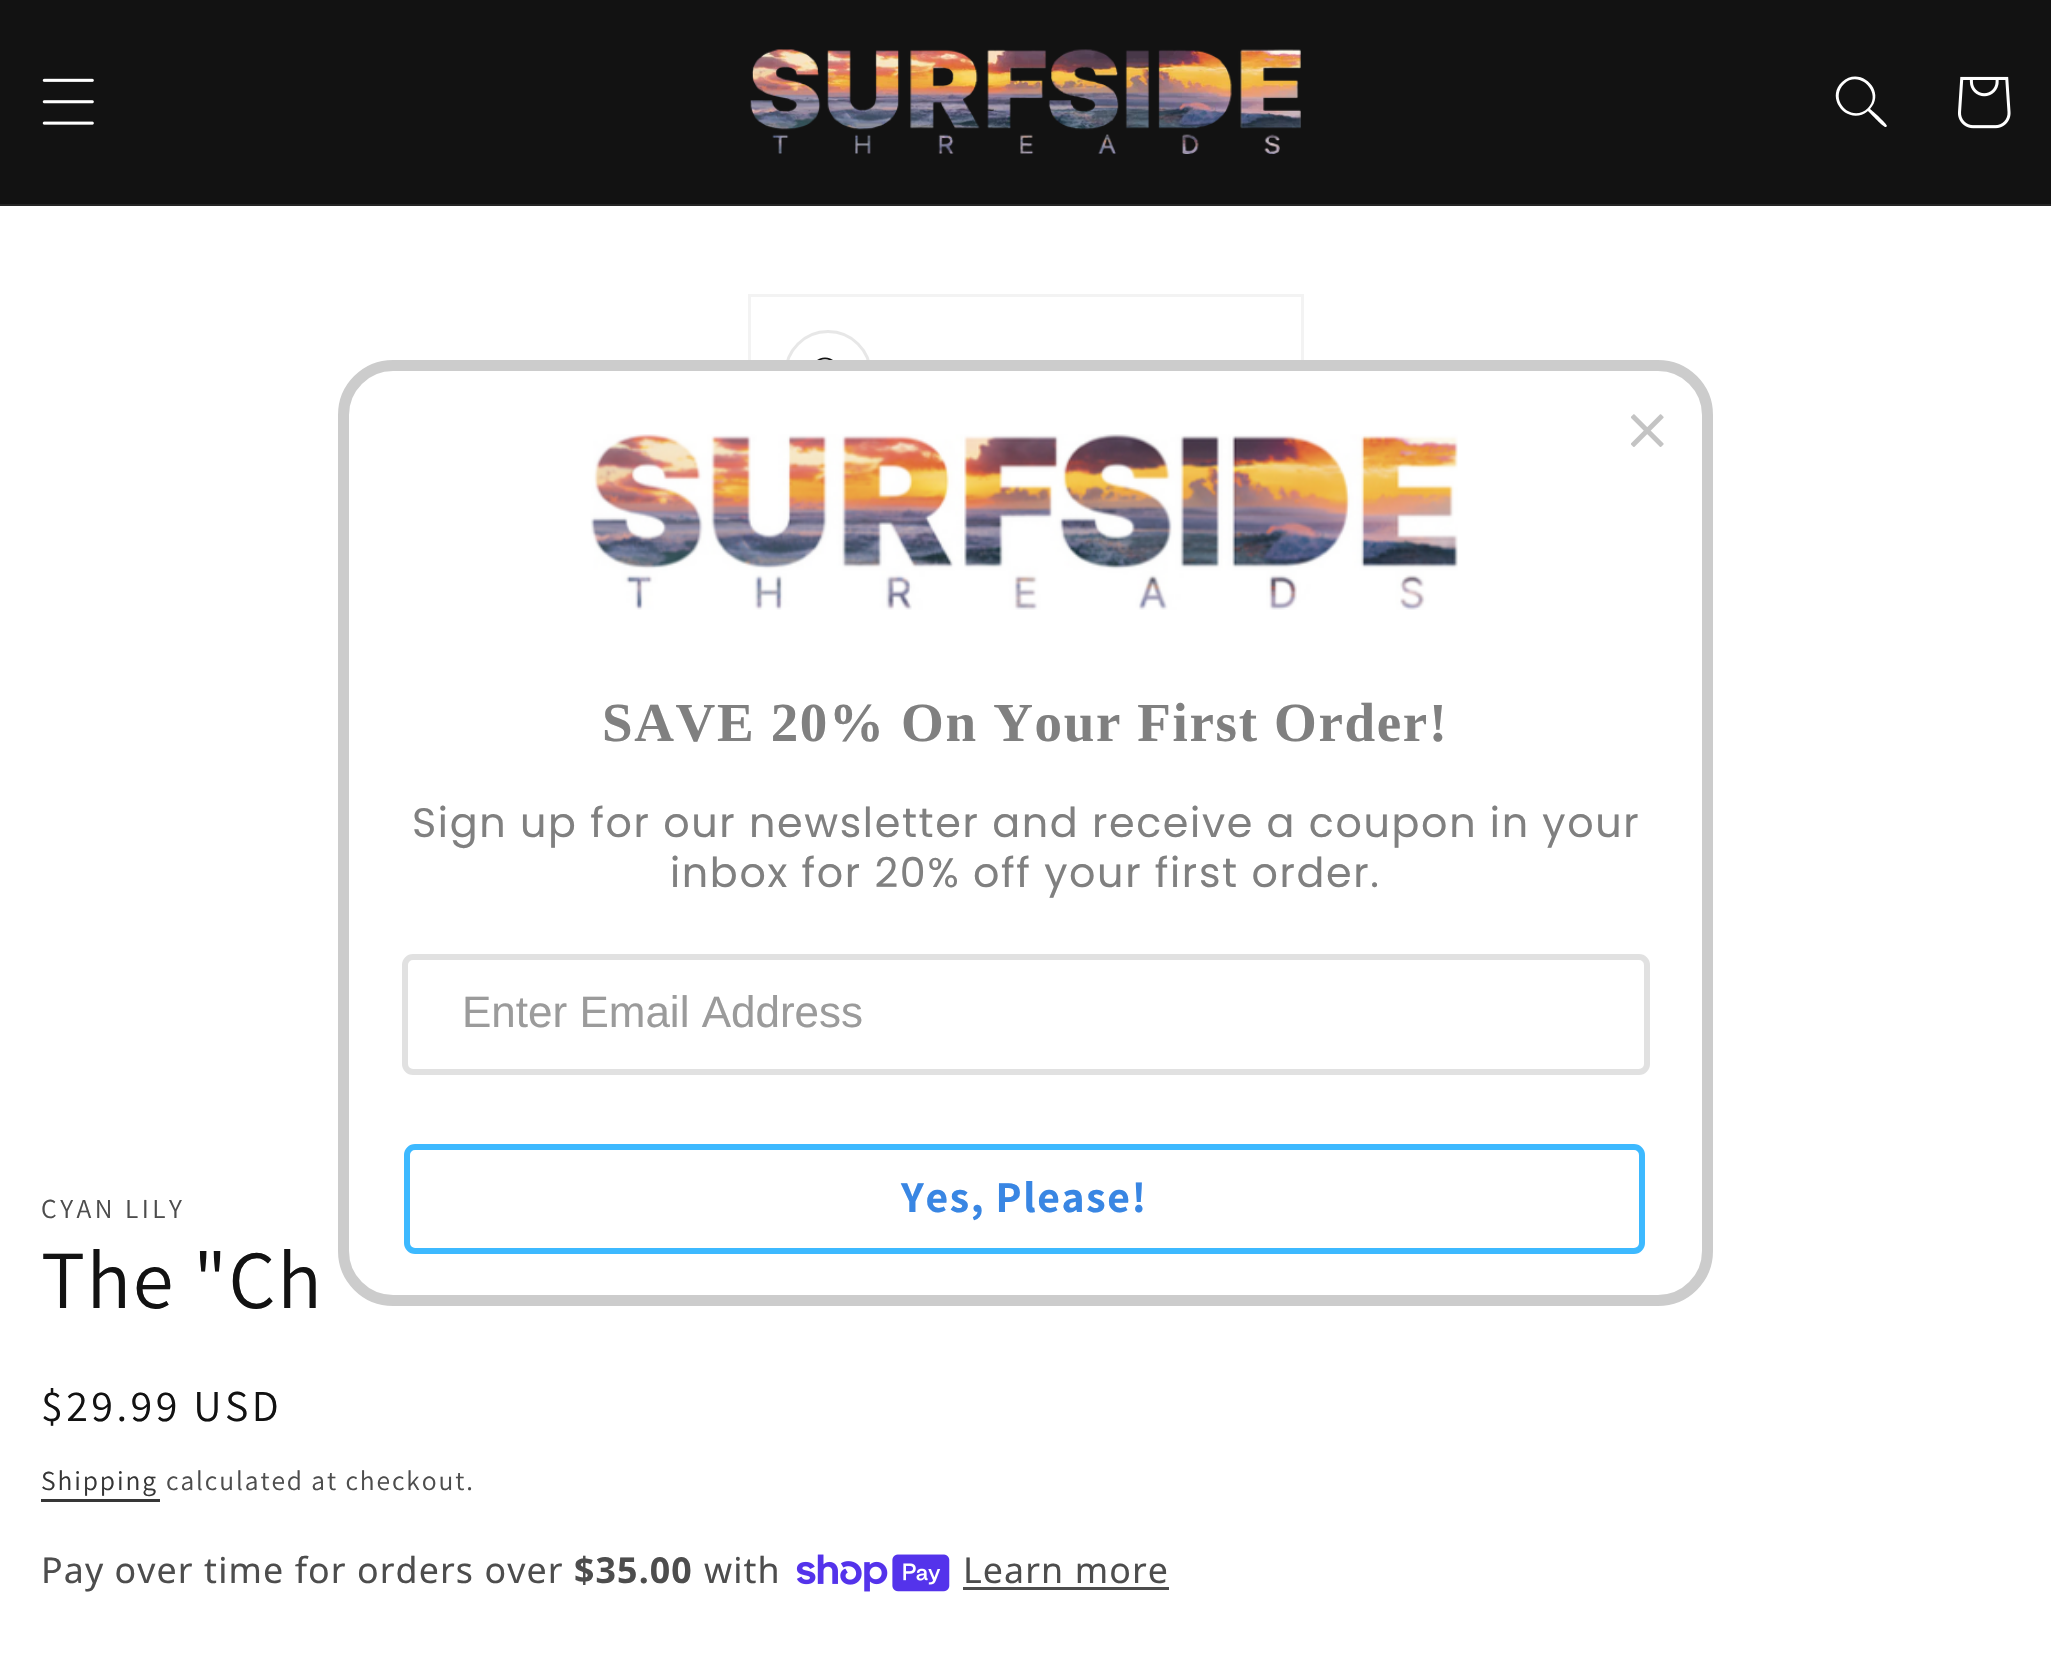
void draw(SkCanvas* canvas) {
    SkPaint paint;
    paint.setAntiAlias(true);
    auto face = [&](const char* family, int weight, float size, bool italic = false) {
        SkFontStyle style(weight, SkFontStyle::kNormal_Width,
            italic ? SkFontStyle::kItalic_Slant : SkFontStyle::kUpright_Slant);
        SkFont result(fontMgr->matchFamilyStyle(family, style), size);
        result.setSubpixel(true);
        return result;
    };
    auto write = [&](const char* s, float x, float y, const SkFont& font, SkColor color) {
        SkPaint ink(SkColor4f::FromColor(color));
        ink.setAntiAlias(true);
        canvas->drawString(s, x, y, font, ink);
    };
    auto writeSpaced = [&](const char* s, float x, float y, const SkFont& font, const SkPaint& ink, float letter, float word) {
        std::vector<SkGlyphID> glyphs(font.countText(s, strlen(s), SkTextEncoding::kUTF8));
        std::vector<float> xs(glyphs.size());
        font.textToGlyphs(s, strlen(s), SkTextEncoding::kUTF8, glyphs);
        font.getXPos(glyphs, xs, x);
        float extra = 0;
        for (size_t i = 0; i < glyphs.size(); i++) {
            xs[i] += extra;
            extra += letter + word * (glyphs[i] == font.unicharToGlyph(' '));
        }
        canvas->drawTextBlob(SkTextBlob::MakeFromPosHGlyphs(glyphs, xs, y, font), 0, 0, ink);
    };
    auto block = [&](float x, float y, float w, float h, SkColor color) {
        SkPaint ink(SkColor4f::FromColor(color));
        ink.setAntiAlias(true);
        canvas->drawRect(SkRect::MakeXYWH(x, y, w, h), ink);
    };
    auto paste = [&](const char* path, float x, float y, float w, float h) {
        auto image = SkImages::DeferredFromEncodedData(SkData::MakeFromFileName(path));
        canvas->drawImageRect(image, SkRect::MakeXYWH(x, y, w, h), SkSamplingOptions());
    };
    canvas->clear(SK_ColorWHITE);
    block(0, 0, 2051, 204, SkColorSetRGB(18, 18, 18));
    block(0, 204, 2051, 2, SkColorSetRGB(37, 37, 37));
    paste("pic1.png", 42, 78, 52, 47);
    paste("pic2.png", 750, 49, 551, 105);
    paint.setColor(SK_ColorWHITE);
    canvas->drawPath(SkPathBuilder(SkPathFillType::kEvenOdd).moveTo(1868, 108).cubicTo(1852, 124, 1828, 100, 1844, 84).cubicTo(1859, 69, 1883, 93, 1868, 108).close().moveTo(1868, 111).cubicTo(1849, 127, 1824, 99, 1842, 82).cubicTo(1860, 65, 1887, 91, 1870, 109).cubicTo(1873, 111, 1887, 124, 1887, 126).lineTo(1886, 127).cubicTo(1884, 128, 1871, 114, 1868, 111).close().detach(), paint);
    paste("pic3.png", 1958, 76, 53, 53);
    paint.setStyle(SkPaint::kStroke_Style);
    paint.setStrokeWidth(3);
    paint.setColor(SkColorSetRGB(243, 243, 243));
    canvas->drawRect(SkRect::MakeXYWH(749.5f, 295.5f, 553, 828), paint);
    paint.setColor(SkColorSetRGB(231, 231, 231));
    canvas->drawCircle(828, 374, 42.5f, paint);
    paint.setStyle(SkPaint::kFill_Style);
    paint.setColor(SK_ColorWHITE);
    canvas->drawRoundRect(SkRect::MakeXYWH(343.5f, 365.5f, 1364, 935), 49.5f, 49.5f, paint);
    paint.setStyle(SkPaint::kStroke_Style);
    paint.setStrokeWidth(11);
    paint.setColor(SkColorSetRGB(204, 204, 204));
    canvas->drawRoundRect(SkRect::MakeXYWH(343.5f, 365.5f, 1364, 935), 49.5f, 49.5f, paint);
    paste("pic4.png", 1631, 414, 33, 33);
    paste("pic5.png", 590, 434, 868, 176);
    auto kFont1 = face("Liberation Serif", 700, 55);
    paint.setStyle(SkPaint::kFill_Style);
    paint.setColor(SkColorSetRGB(128, 128, 128));
    writeSpaced("SAVE 20% On Your First Order!", 602, 741, kFont1, paint, 1.65f, 0);
    auto kFont2 = face("Poppins", 400, 41.25f);
    writeSpaced("Sign up for our newsletter and receive a coupon in your", 412, 837, kFont2, paint, 1.65f, 0);
    writeSpaced("inbox for 20% off your first order.", 670, 887, kFont2, paint, 1.65f, 0);
    paint.setStyle(SkPaint::kStroke_Style);
    paint.setStrokeWidth(6);
    paint.setColor(SkColorSetRGB(225, 225, 225));
    canvas->drawRoundRect(SkRect::MakeXYWH(405, 957, 1242, 115), 8, 8, paint);
    auto kFont3 = face("Liberation Sans", 400, 44);
    write("Enter Email Address", 462, 1027, kFont3, SkColorSetRGB(155, 155, 155));
    paint.setColor(SkColorSetRGB(61, 185, 255));
    canvas->drawRoundRect(SkRect::MakeXYWH(407, 1147, 1235, 104), 8, 8, paint);
    auto kFont4 = face("Assistant", 700, 44);
    paint.setStyle(SkPaint::kFill_Style);
    paint.setColor(SkColorSetRGB(57, 134, 227));
    writeSpaced("Yes, Please!", 901, 1212, kFont4, paint, 1.65f, 0);
    paste("pic6.png", 817, 357, 16, 3);
    auto kFont5 = face("Assistant", 400, 27.5f);
    paint.setColor(SkColorSetRGB(77, 77, 77));
    writeSpaced("CYAN LILY", 41, 1218, kFont5, paint, 3.5f, 0);
    auto kFont6 = face("Assistant", 400, 82.5f);
    paint.setColor(SkColorSetRGB(18, 18, 18));
    writeSpaced("The \"Ch", 41, 1308, kFont6, paint, 1.65f, 0);
    auto kFont7 = face("Assistant", 400, 44);
    writeSpaced("$29.99 USD", 41, 1421, kFont7, paint, 3.5f, 0);
    paint.setColor(SkColorSetRGB(54, 54, 54));
    writeSpaced("Shipping", 41, 1490, kFont5, paint, 1.9f, 0);
    block(41, 1499, 119, 3, SkColorSetRGB(54, 54, 54));
    paint.setColor(SkColorSetRGB(77, 77, 77));
    writeSpaced("calculated at checkout.", 166, 1490, kFont5, paint, 1.9f, 0);
    auto kFont8 = face("Noto Sans", 400, 35.75f);
    writeSpaced("Pay over time for orders over", 41, 1583, kFont8, paint, 1.1f, 0);
    auto kFont9 = face("Noto Sans", 700, 35.75f);
    writeSpaced("$35.00", 574, 1583, kFont9, paint, 1.1f, 0);
    writeSpaced("with", 704, 1583, kFont8, paint, 1.1f, 0);
    paste("pic7.png", 796, 1554, 154, 38);
    writeSpaced("Learn more", 963, 1583, kFont8, paint, 1.1f, 0);
    block(963, 1587, 206, 3, SkColorSetRGB(77, 77, 77));
}
